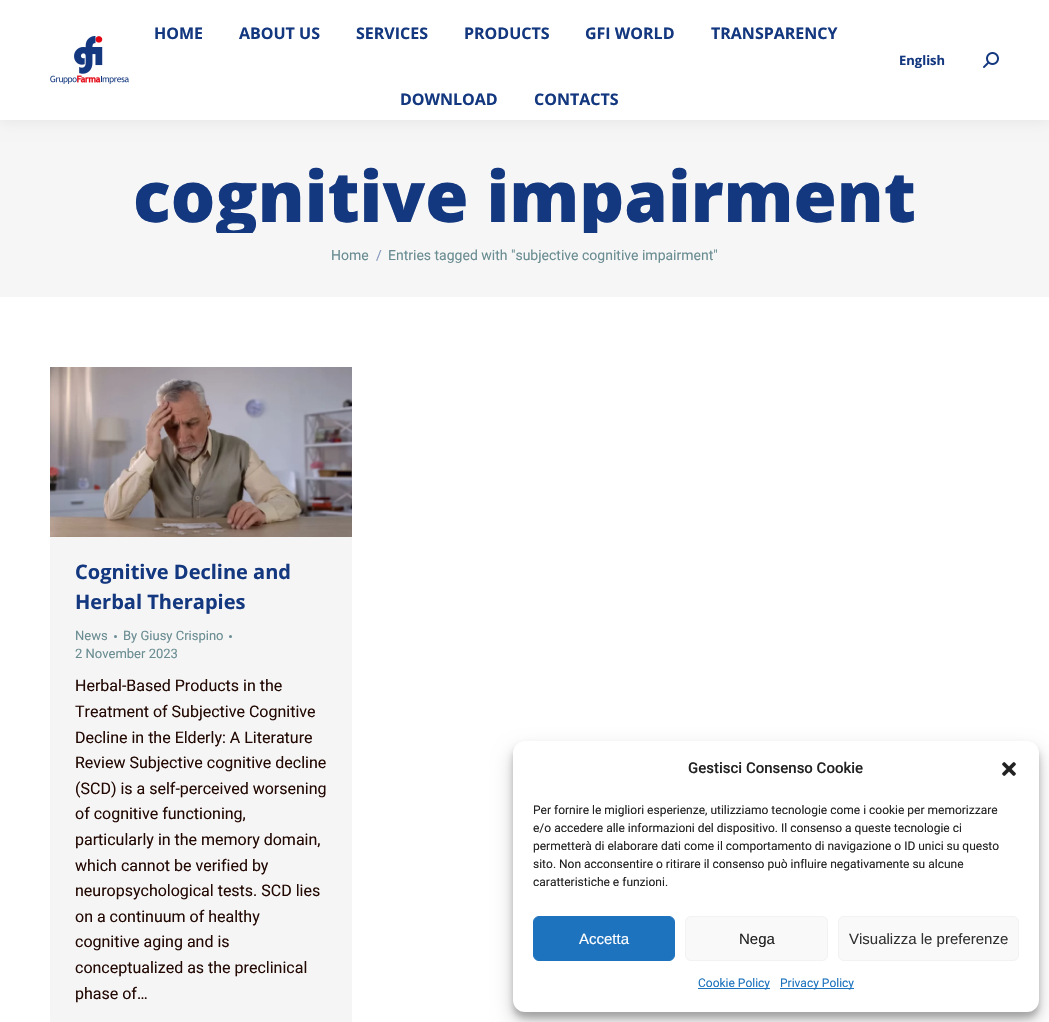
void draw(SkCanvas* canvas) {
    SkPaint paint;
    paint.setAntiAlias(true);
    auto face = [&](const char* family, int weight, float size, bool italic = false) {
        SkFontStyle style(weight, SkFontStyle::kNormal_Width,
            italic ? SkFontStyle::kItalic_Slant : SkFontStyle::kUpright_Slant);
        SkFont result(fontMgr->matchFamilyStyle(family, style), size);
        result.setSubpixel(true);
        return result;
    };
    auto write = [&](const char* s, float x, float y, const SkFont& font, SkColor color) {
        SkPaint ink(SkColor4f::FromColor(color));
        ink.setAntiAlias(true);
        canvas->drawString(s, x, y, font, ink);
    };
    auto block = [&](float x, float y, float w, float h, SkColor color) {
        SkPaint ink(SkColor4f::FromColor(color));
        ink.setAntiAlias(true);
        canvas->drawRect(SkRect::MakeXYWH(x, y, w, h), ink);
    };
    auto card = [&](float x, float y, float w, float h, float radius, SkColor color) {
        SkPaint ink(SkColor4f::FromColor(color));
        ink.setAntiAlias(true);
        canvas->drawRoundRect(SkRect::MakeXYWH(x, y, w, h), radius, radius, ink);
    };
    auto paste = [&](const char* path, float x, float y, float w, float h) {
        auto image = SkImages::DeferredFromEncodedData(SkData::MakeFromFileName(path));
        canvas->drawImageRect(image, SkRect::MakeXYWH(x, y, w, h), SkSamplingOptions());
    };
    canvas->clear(SK_ColorWHITE);
    block(0, 120, 1049, 177, SkColorSetRGB(246, 246, 246));
    paint.setColor(SkColorSetARGB(18, 0, 0, 0));
    paint.setMaskFilter(SkMaskFilter::MakeBlur(kNormal_SkBlurStyle, 7.5f));
    canvas->drawRect(SkRect::MakeXYWH(-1, -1, 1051, 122), paint);
    paint.setMaskFilter(nullptr);
    block(0, 0, 1049, 120, SK_ColorWHITE);
    paste("pic1.png", 50, 36, 79, 48);
    auto kFont1 = face("Open Sans", 700, 16);
    write("HOME", 154, 39, kFont1, SkColorSetRGB(20, 56, 127));
    write("ABOUT US", 239, 39, kFont1, SkColorSetRGB(20, 56, 127));
    write("SERVICES", 356, 39, kFont1, SkColorSetRGB(20, 56, 127));
    write("PRODUCTS", 464, 39, kFont1, SkColorSetRGB(20, 56, 127));
    write("GFI WORLD", 585, 39, kFont1, SkColorSetRGB(20, 56, 127));
    write("TRANSPARENCY", 711, 39, kFont1, SkColorSetRGB(20, 56, 127));
    write("DOWNLOAD", 400, 105, kFont1, SkColorSetRGB(20, 56, 127));
    write("CONTACTS", 534, 105, kFont1, SkColorSetRGB(20, 56, 127));
    auto kFont2 = face("Open Sans", 700, 13);
    write("English", 899, 65, kFont2, SkColorSetRGB(20, 56, 127));
    paste("pic2.png", 983, 52, 16, 16);
    canvas->save();
    canvas->clipRect(SkRect::MakeXYWH(50, 83, 949, 150));
    auto kFont3 = face("Open Sans", 800, 70);
    write("cognitive impairment", 133, 222, kFont3, SkColorSetRGB(20, 56, 127));
    canvas->restore();
    auto kFont4 = face("Roboto", 400, 14);
    write("Home", 331, 260, kFont4, SkColorSetRGB(106, 141, 146));
    write("/", 376, 260, kFont4, SkColorSetRGB(133, 151, 187));
    write("Entries tagged with \"subjective cognitive impairment\"", 388, 260, kFont4, SkColorSetRGB(106, 141, 146));
    block(50, 537, 302, 485, SkColorSetRGB(245, 245, 245));
    paste("pic3.png", 50, 367, 302, 170);
    auto kFont5 = face("Open Sans", 700, 20);
    write("Cognitive Decline and", 75, 579, kFont5, SkColorSetRGB(20, 56, 127));
    write("Herbal Therapies", 75, 609, kFont5, SkColorSetRGB(20, 56, 127));
    auto kFont6 = face("Roboto", 400, 13);
    write("News", 75, 640, kFont6, SkColorSetRGB(106, 141, 146));
    paint.setColor(SkColorSetRGB(106, 141, 146));
    canvas->drawCircle(115.5f, 636.5f, 1.5f, paint);
    write("By Giusy Crispino", 123, 640, kFont6, SkColorSetRGB(106, 141, 146));
    canvas->drawCircle(230.5f, 636.5f, 1.5f, paint);
    write("2 November 2023", 75, 658, kFont6, SkColorSetRGB(106, 141, 146));
    auto kFont7 = face("Roboto", 400, 16);
    write("Herbal-Based Products in the", 75, 691, kFont7, SkColorSetRGB(35, 9, 3));
    write("Treatment of Subjective Cognitive", 75, 717, kFont7, SkColorSetRGB(35, 9, 3));
    write("Decline in the Elderly: A Literature", 75, 743, kFont7, SkColorSetRGB(35, 9, 3));
    write("Review Subjective cognitive decline", 75, 768, kFont7, SkColorSetRGB(35, 9, 3));
    write("(SCD) is a self-perceived worsening", 75, 794, kFont7, SkColorSetRGB(35, 9, 3));
    write("of cognitive functioning,", 75, 819, kFont7, SkColorSetRGB(35, 9, 3));
    write("particularly in the memory domain,", 75, 845, kFont7, SkColorSetRGB(35, 9, 3));
    write("which cannot be verified by", 75, 871, kFont7, SkColorSetRGB(35, 9, 3));
    write("neuropsychological tests. SCD lies", 75, 896, kFont7, SkColorSetRGB(35, 9, 3));
    write("on a continuum of healthy", 75, 922, kFont7, SkColorSetRGB(35, 9, 3));
    write("cognitive aging and is", 75, 947, kFont7, SkColorSetRGB(35, 9, 3));
    write("conceptualized as the preclinical", 75, 973, kFont7, SkColorSetRGB(35, 9, 3));
    write("phase of…", 75, 999, kFont7, SkColorSetRGB(35, 9, 3));
    paint.setColor(SkColorSetARGB(59, 0, 0, 0));
    paint.setMaskFilter(SkMaskFilter::MakeBlur(kNormal_SkBlurStyle, 3));
    canvas->drawRoundRect(SkRect::MakeXYWH(513, 747, 526, 271), 12, 12, paint);
    paint.setMaskFilter(nullptr);
    paint.setColor(SkColorSetARGB(48, 0, 0, 0));
    paint.setMaskFilter(SkMaskFilter::MakeBlur(kNormal_SkBlurStyle, 10));
    canvas->drawRoundRect(SkRect::MakeXYWH(513, 751, 526, 271), 12, 12, paint);
    paint.setMaskFilter(nullptr);
    card(513, 741, 526, 271, 12, SK_ColorWHITE);
    auto kFont8 = face("Roboto", 500, 15);
    write("Gestisci Consenso Cookie", 688, 773, kFont8, SkColorSetRGB(34, 34, 34));
    paste("pic4.png", 1002, 762, 14, 14);
    auto kFont9 = face("Roboto", 400, 12);
    write("Per fornire le migliori esperienze, utilizziamo tecnologie come i cookie per memorizzare", 533, 814, kFont9, SkColorSetRGB(34, 34, 34));
    write("e/o accedere alle informazioni del dispositivo. Il consenso a queste tecnologie ci", 533, 832, kFont9, SkColorSetRGB(34, 34, 34));
    write("permetterà di elaborare dati come il comportamento di navigazione o ID unici su questo", 533, 850, kFont9, SkColorSetRGB(34, 34, 34));
    write("sito. Non acconsentire o ritirare il consenso può influire negativamente su alcune", 533, 868, kFont9, SkColorSetRGB(34, 34, 34));
    write("caratteristiche e funzioni.", 533, 886, kFont9, SkColorSetRGB(34, 34, 34));
    paint.setColor(SkColorSetRGB(30, 115, 190));
    canvas->drawRoundRect(SkRect::MakeXYWH(533.5f, 916.5f, 141, 44), 5.5f, 5.5f, paint);
    paint.setStyle(SkPaint::kStroke_Style);
    paint.setStrokeWidth(1);
    canvas->drawRoundRect(SkRect::MakeXYWH(533.5f, 916.5f, 141, 44), 5.5f, 5.5f, paint);
    auto kFont10 = face("Liberation Sans", 400, 15);
    write("Accetta", 579, 944, kFont10, SK_ColorWHITE);
    paint.setStyle(SkPaint::kFill_Style);
    paint.setColor(SkColorSetRGB(249, 249, 249));
    canvas->drawRoundRect(SkRect::MakeXYWH(685.5f, 916.5f, 142, 44), 5.5f, 5.5f, paint);
    paint.setStyle(SkPaint::kStroke_Style);
    paint.setColor(SkColorSetRGB(242, 242, 242));
    canvas->drawRoundRect(SkRect::MakeXYWH(685.5f, 916.5f, 142, 44), 5.5f, 5.5f, paint);
    write("Nega", 739, 944, kFont10, SkColorSetRGB(34, 34, 34));
    paint.setStyle(SkPaint::kFill_Style);
    paint.setColor(SkColorSetRGB(249, 249, 249));
    canvas->drawRoundRect(SkRect::MakeXYWH(838.5f, 916.5f, 180, 44), 5.5f, 5.5f, paint);
    paint.setStyle(SkPaint::kStroke_Style);
    paint.setColor(SkColorSetRGB(242, 242, 242));
    canvas->drawRoundRect(SkRect::MakeXYWH(838.5f, 916.5f, 180, 44), 5.5f, 5.5f, paint);
    write("Visualizza le preferenze", 849, 944, kFont10, SkColorSetRGB(51, 51, 51));
    block(698, 988, 72, 1, SkColorSetRGB(30, 115, 190));
    write("Cookie Policy", 698, 987, kFont9, SkColorSetRGB(30, 115, 190));
    block(780, 988, 74, 1, SkColorSetRGB(30, 115, 190));
    write("Privacy Policy", 780, 987, kFont9, SkColorSetRGB(30, 115, 190));
}
